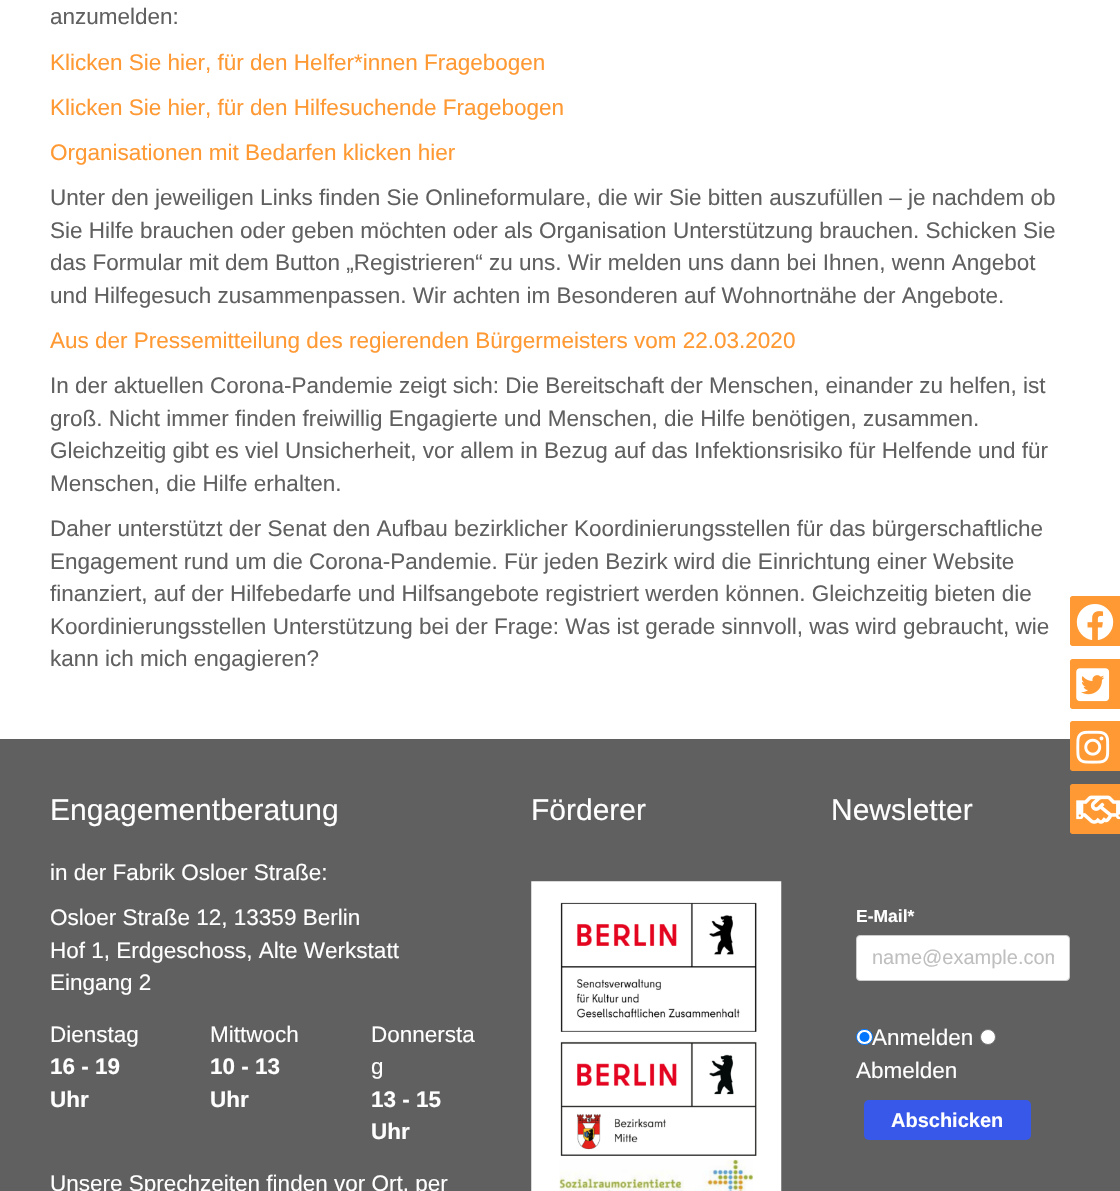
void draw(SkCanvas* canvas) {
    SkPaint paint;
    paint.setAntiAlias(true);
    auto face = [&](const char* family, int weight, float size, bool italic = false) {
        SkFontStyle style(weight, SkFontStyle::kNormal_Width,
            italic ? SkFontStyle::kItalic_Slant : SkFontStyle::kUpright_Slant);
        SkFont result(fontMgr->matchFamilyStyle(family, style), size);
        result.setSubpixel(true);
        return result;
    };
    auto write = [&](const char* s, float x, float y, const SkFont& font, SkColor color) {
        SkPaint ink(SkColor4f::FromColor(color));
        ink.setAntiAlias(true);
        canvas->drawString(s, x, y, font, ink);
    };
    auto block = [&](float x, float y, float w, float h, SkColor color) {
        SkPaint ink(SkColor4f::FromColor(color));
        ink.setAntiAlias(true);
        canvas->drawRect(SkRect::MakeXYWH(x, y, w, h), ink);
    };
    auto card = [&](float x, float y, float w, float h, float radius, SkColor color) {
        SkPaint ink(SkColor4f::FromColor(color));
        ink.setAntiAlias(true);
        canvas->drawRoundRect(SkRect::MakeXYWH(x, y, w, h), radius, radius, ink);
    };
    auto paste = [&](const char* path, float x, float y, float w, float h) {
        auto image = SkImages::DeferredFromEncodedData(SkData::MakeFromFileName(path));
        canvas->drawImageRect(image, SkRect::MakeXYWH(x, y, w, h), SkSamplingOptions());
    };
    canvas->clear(SK_ColorWHITE);
    auto kFont1 = face("Liberation Sans", 400, 22.5f);
    write("anzumelden:", 50, 24, kFont1, SkColorSetRGB(96, 96, 96));
    write("Klicken Sie hier, für den Helfer*innen Fragebogen", 50, 70, kFont1, SkColorSetRGB(255, 153, 51));
    write("Klicken Sie hier, für den Hilfesuchende Fragebogen", 50, 115, kFont1, SkColorSetRGB(255, 153, 51));
    write("Organisationen mit Bedarfen klicken hier", 50, 160, kFont1, SkColorSetRGB(255, 153, 51));
    write("Unter den jeweiligen Links finden Sie Onlineformulare, die wir Sie bitten auszufüllen – je nachdem ob", 50, 205, kFont1, SkColorSetRGB(96, 96, 96));
    write("Sie Hilfe brauchen oder geben möchten oder als Organisation Unterstützung brauchen. Schicken Sie", 50, 238, kFont1, SkColorSetRGB(96, 96, 96));
    write("das Formular mit dem Button „Registrieren“ zu uns. Wir melden uns dann bei Ihnen, wenn Angebot", 50, 270, kFont1, SkColorSetRGB(96, 96, 96));
    write("und Hilfegesuch zusammenpassen. Wir achten im Besonderen auf Wohnortnähe der Angebote.", 50, 303, kFont1, SkColorSetRGB(96, 96, 96));
    write("Aus der Pressemitteilung des regierenden Bürgermeisters vom 22.03.2020", 50, 348, kFont1, SkColorSetRGB(255, 153, 51));
    write("In der aktuellen Corona-Pandemie zeigt sich: Die Bereitschaft der Menschen, einander zu helfen, ist", 50, 393, kFont1, SkColorSetRGB(96, 96, 96));
    write("groß. Nicht immer finden freiwillig Engagierte und Menschen, die Hilfe benötigen, zusammen.", 50, 426, kFont1, SkColorSetRGB(96, 96, 96));
    write("Gleichzeitig gibt es viel Unsicherheit, vor allem in Bezug auf das Infektionsrisiko für Helfende und für", 50, 458, kFont1, SkColorSetRGB(96, 96, 96));
    write("Menschen, die Hilfe erhalten.", 50, 491, kFont1, SkColorSetRGB(96, 96, 96));
    write("Daher unterstützt der Senat den Aufbau bezirklicher Koordinierungsstellen für das bürgerschaftliche", 50, 536, kFont1, SkColorSetRGB(96, 96, 96));
    write("Engagement rund um die Corona-Pandemie. Für jeden Bezirk wird die Einrichtung einer Website", 50, 569, kFont1, SkColorSetRGB(96, 96, 96));
    write("finanziert, auf der Hilfebedarfe und Hilfsangebote registriert werden können. Gleichzeitig bieten die", 50, 601, kFont1, SkColorSetRGB(96, 96, 96));
    write("Koordinierungsstellen Unterstützung bei der Frage: Was ist gerade sinnvoll, was wird gebraucht, wie", 50, 634, kFont1, SkColorSetRGB(96, 96, 96));
    write("kann ich mich engagieren?", 50, 666, kFont1, SkColorSetRGB(96, 96, 96));
    paint.setColor(SkColorSetRGB(255, 153, 51));
    canvas->drawPath(SkPathBuilder().moveTo(1072.5f, 596).lineTo(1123, 596).lineTo(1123, 646).lineTo(1072.5f, 646).cubicTo(1071, 646, 1070, 645, 1070, 643.5f).lineTo(1070, 598.5f).cubicTo(1070, 597, 1071, 596, 1072.5f, 596).close().detach(), paint);
    paste("pic1.png", 1076, 604, 38, 36);
    canvas->drawPath(SkPathBuilder().moveTo(1072.5f, 659).lineTo(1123, 659).lineTo(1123, 709).lineTo(1072.5f, 709).cubicTo(1071, 709, 1070, 708, 1070, 706.5f).lineTo(1070, 661.5f).cubicTo(1070, 660, 1071, 659, 1072.5f, 659).close().detach(), paint);
    paste("pic2.png", 1076, 668, 34, 34);
    block(0, 739, 1120, 452, SkColorSetRGB(96, 96, 96));
    canvas->drawPath(SkPathBuilder().moveTo(1072.5f, 721).lineTo(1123, 721).lineTo(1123, 771).lineTo(1072.5f, 771).cubicTo(1071, 771, 1070, 770, 1070, 768.5f).lineTo(1070, 723.5f).cubicTo(1070, 722, 1071, 721, 1072.5f, 721).close().detach(), paint);
    paste("pic3.png", 1076, 730, 34, 34);
    canvas->drawPath(SkPathBuilder().moveTo(1072.5f, 784).lineTo(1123, 784).lineTo(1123, 834).lineTo(1072.5f, 834).cubicTo(1071, 834, 1070, 833, 1070, 831.5f).lineTo(1070, 786.5f).cubicTo(1070, 785, 1071, 784, 1072.5f, 784).close().detach(), paint);
    paste("pic4.png", 1076, 795, 44, 29);
    auto kFont2 = face("Liberation Sans", 400, 30);
    write("Engagementberatung", 50, 820, kFont2, SK_ColorWHITE);
    write("in der Fabrik Osloer Straße:", 50, 880, kFont1, SK_ColorWHITE);
    write("Osloer Straße 12, 13359 Berlin", 50, 925, kFont1, SK_ColorWHITE);
    write("Hof 1, Erdgeschoss, Alte Werkstatt", 50, 958, kFont1, SK_ColorWHITE);
    write("Eingang 2", 50, 990, kFont1, SK_ColorWHITE);
    write("Dienstag", 50, 1042, kFont1, SK_ColorWHITE);
    auto kFont3 = face("Liberation Sans", 700, 22.5f);
    write("16 - 19", 50, 1074, kFont3, SK_ColorWHITE);
    write("Uhr", 50, 1107, kFont3, SK_ColorWHITE);
    write("Mittwoch", 210, 1042, kFont1, SK_ColorWHITE);
    write("10 - 13", 210, 1074, kFont3, SK_ColorWHITE);
    write("Uhr", 210, 1107, kFont3, SK_ColorWHITE);
    write("Donnersta", 371, 1042, kFont1, SK_ColorWHITE);
    write("g", 371, 1074, kFont1, SK_ColorWHITE);
    write("13 - 15", 371, 1107, kFont3, SK_ColorWHITE);
    write("Uhr", 371, 1139, kFont3, SK_ColorWHITE);
    write("Unsere Sprechzeiten finden vor Ort, per", 50, 1191, kFont1, SK_ColorWHITE);
    write("Förderer", 531, 820, kFont2, SK_ColorWHITE);
    paste("pic5.png", 531, 881, 251, 310);
    write("Newsletter", 831, 820, kFont2, SK_ColorWHITE);
    auto kFont4 = face("Liberation Sans", 700, 17.5f);
    write("E-Mail*", 856, 922, kFont4, SK_ColorWHITE);
    paint.setColor(SK_ColorWHITE);
    canvas->drawRoundRect(SkRect::MakeXYWH(856.5f, 935.5f, 213, 45), 3.5f, 3.5f, paint);
    paint.setStyle(SkPaint::kStroke_Style);
    paint.setStrokeWidth(1);
    paint.setColor(SkColorSetRGB(204, 204, 204));
    canvas->drawRoundRect(SkRect::MakeXYWH(856.5f, 935.5f, 213, 45), 3.5f, 3.5f, paint);
    canvas->save();
    canvas->clipRect(SkRect::MakeXYWH(873, 946, 181, 23));
    auto kFont5 = face("Liberation Sans", 400, 20);
    write("name@example.com", 872, 964, kFont5, SkColorSetRGB(191, 191, 191));
    canvas->restore();
    paint.setStyle(SkPaint::kFill_Style);
    paint.setColor(SK_ColorWHITE);
    canvas->drawRoundRect(SkRect::MakeXYWH(856.5f, 1029.5f, 16, 15), 7.5f, 7.5f, paint);
    paint.setStyle(SkPaint::kStroke_Style);
    paint.setColor(SkColorSetRGB(0, 117, 255));
    canvas->drawRoundRect(SkRect::MakeXYWH(856.5f, 1029.5f, 16, 15), 7.5f, 7.5f, paint);
    paint.setStyle(SkPaint::kFill_Style);
    canvas->drawCircle(864.5f, 1037, 5, paint);
    write("Anmelden", 872, 1045, kFont1, SK_ColorWHITE);
    paint.setColor(SK_ColorWHITE);
    canvas->drawCircle(988, 1037, 7.5f, paint);
    paint.setStyle(SkPaint::kStroke_Style);
    paint.setColor(SkColorSetRGB(118, 118, 118));
    canvas->drawCircle(988, 1037, 7.5f, paint);
    write("Abmelden", 856, 1078, kFont1, SK_ColorWHITE);
    card(864, 1100, 167, 40, 5, SkColorSetRGB(56, 88, 233));
    auto kFont6 = face("Liberation Sans", 700, 20);
    write("Abschicken", 891, 1127, kFont6, SK_ColorWHITE);
}
